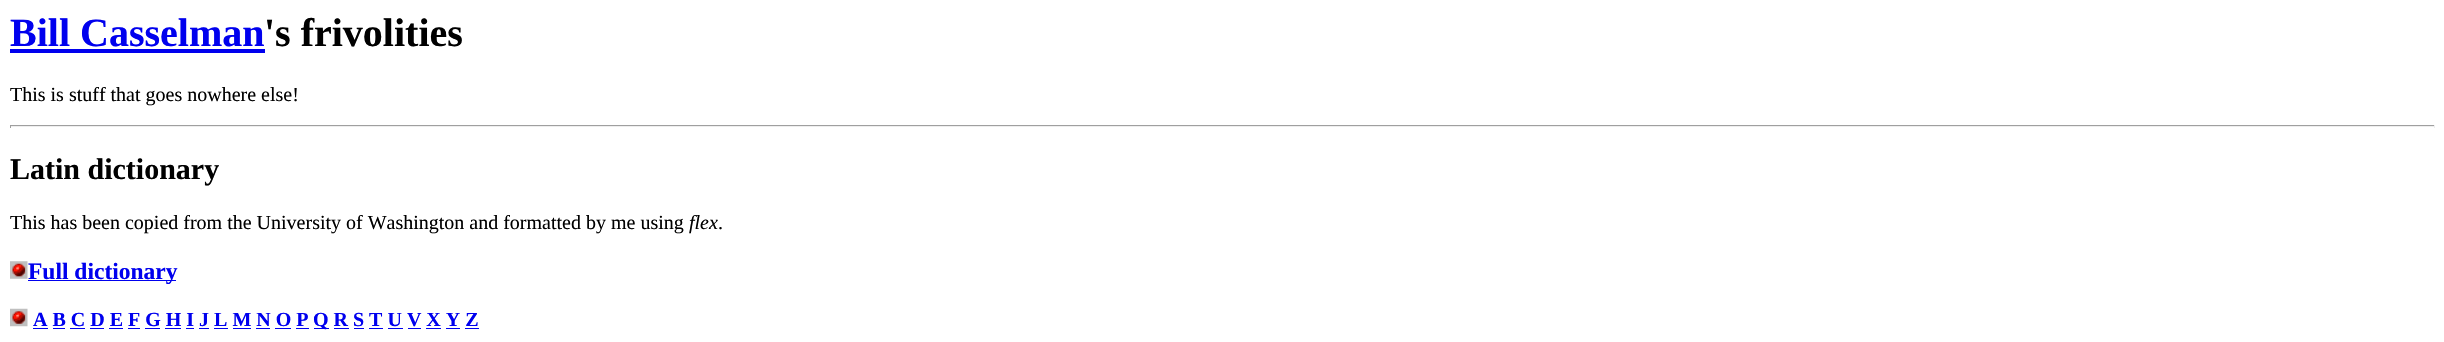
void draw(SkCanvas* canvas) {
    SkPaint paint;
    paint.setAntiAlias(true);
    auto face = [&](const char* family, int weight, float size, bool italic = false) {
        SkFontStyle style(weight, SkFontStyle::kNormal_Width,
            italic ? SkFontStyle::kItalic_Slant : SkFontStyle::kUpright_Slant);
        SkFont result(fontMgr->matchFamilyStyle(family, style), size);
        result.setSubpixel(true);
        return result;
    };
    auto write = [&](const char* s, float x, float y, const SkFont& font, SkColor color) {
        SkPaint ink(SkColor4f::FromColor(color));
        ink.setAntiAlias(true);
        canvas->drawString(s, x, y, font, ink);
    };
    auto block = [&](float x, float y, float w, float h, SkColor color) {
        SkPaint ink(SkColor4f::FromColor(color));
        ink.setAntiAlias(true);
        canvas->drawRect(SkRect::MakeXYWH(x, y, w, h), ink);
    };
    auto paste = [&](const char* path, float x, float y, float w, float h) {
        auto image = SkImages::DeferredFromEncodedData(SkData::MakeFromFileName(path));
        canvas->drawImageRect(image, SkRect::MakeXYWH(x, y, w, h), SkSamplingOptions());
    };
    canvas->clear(SK_ColorWHITE);
    auto kFont1 = face("Liberation Serif", 700, 40);
    write("Bill Casselman", 10, 46, kFont1, SkColorSetRGB(0, 0, 238));
    block(10, 49, 255, 4, SkColorSetRGB(0, 0, 238));
    write("'s frivolities", 264, 46, kFont1, SK_ColorBLACK);
    auto kFont2 = face("Liberation Serif", 400, 20);
    write("This is stuff that goes nowhere else!", 10, 101, kFont2, SK_ColorBLACK);
    block(10, 125, 2425, 1, SkColorSetRGB(159, 159, 159));
    block(2434, 125, 1, 3, SkColorSetRGB(238, 238, 238));
    block(10, 126, 2425, 1, SkColorSetRGB(238, 238, 238));
    block(10, 125, 1, 3, SkColorSetRGB(159, 159, 159));
    auto kFont3 = face("Liberation Serif", 700, 30);
    write("Latin dictionary", 10, 179, kFont3, SK_ColorBLACK);
    write("This has been copied from the University of Washington and formatted by me using", 10, 229, kFont2, SK_ColorBLACK);
    auto kFont4 = face("Liberation Serif", 400, 20, true);
    write("flex", 689, 229, kFont4, SK_ColorBLACK);
    write(".", 718, 229, kFont2, SK_ColorBLACK);
    paste("pic1.png", 10, 261, 18, 18);
    block(28, 280, 148, 1, SkColorSetRGB(0, 0, 238));
    auto kFont5 = face("Liberation Serif", 700, 23.5f);
    write("Full dictionary", 28, 279, kFont5, SkColorSetRGB(0, 0, 238));
    paste("pic2.png", 10, 308, 18, 19);
    auto kFont6 = face("Liberation Serif", 700, 20);
    write("A B C D E F G H I J L M N O P", 33, 326, kFont6, SkColorSetRGB(0, 0, 238));
    block(33, 328, 15, 1, SkColorSetRGB(0, 0, 238));
    block(53, 328, 12, 1, SkColorSetRGB(0, 0, 238));
    block(70, 328, 15, 1, SkColorSetRGB(0, 0, 238));
    block(90, 328, 14, 1, SkColorSetRGB(0, 0, 238));
    block(109, 328, 14, 1, SkColorSetRGB(0, 0, 238));
    block(128, 328, 12, 1, SkColorSetRGB(0, 0, 238));
    block(145, 328, 15, 1, SkColorSetRGB(0, 0, 238));
    block(165, 328, 16, 1, SkColorSetRGB(0, 0, 238));
    block(186, 328, 8, 1, SkColorSetRGB(0, 0, 238));
    block(199, 328, 10, 1, SkColorSetRGB(0, 0, 238));
    block(214, 328, 14, 1, SkColorSetRGB(0, 0, 238));
    block(233, 328, 18, 1, SkColorSetRGB(0, 0, 238));
    block(256, 328, 14, 1, SkColorSetRGB(0, 0, 238));
    block(275, 328, 16, 1, SkColorSetRGB(0, 0, 238));
    block(296, 328, 13, 1, SkColorSetRGB(0, 0, 238));
    block(314, 328, 15, 1, SkColorSetRGB(0, 0, 238));
    write("Q R S T U V X Y Z", 313, 326, kFont6, SkColorSetRGB(0, 0, 238));
    block(334, 328, 15, 1, SkColorSetRGB(0, 0, 238));
    block(354, 328, 10, 1, SkColorSetRGB(0, 0, 238));
    block(369, 328, 14, 1, SkColorSetRGB(0, 0, 238));
    block(388, 328, 15, 1, SkColorSetRGB(0, 0, 238));
    block(408, 328, 13, 1, SkColorSetRGB(0, 0, 238));
    block(426, 328, 15, 1, SkColorSetRGB(0, 0, 238));
    block(446, 328, 14, 1, SkColorSetRGB(0, 0, 238));
    block(465, 328, 14, 1, SkColorSetRGB(0, 0, 238));
}
